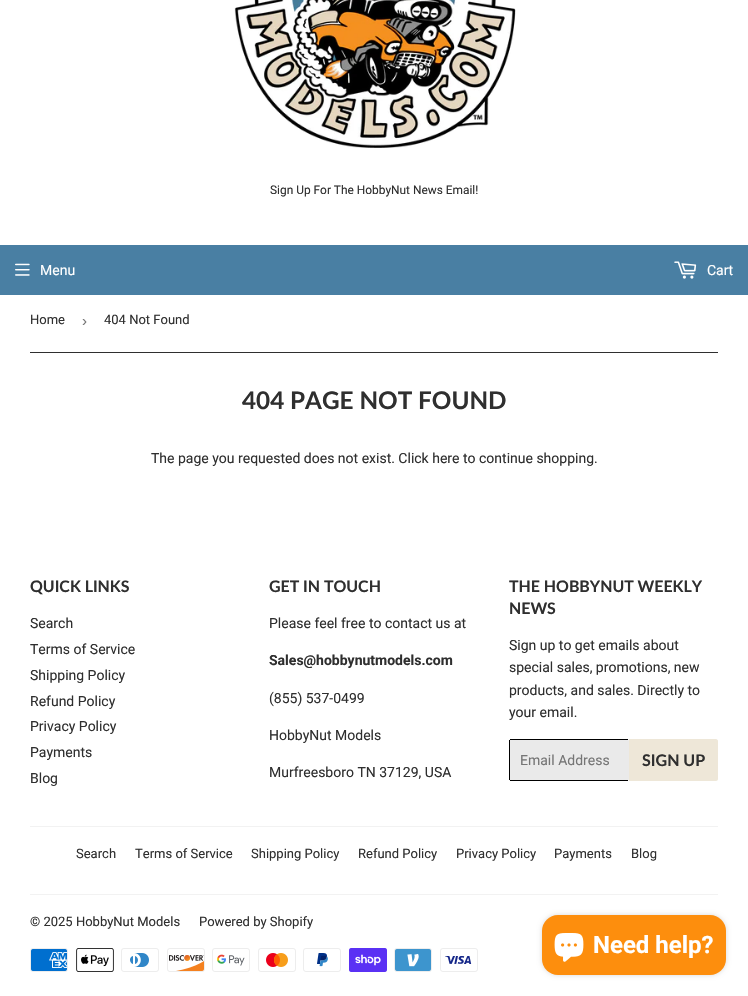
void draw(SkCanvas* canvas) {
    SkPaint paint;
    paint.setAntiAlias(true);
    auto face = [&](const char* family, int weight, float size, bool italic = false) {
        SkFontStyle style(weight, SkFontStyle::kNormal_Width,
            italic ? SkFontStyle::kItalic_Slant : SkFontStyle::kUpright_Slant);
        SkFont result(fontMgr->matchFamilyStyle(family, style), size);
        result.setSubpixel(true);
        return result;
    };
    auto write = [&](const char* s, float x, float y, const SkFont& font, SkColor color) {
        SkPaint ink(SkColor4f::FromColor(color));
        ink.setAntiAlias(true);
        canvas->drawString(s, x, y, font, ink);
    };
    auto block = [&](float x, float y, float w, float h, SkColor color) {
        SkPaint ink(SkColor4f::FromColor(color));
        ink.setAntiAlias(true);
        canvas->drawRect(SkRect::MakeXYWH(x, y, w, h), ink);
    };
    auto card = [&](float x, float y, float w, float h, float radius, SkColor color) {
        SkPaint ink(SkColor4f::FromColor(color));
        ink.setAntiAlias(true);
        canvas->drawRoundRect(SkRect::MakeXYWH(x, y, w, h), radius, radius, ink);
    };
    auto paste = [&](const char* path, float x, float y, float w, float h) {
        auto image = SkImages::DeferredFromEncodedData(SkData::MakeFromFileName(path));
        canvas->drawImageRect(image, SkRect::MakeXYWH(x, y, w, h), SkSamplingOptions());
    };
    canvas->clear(SK_ColorWHITE);
    paste("pic1.png", 234, 0, 282, 148);
    auto kFont1 = face("Roboto", 400, 11.9f);
    write("Sign Up For The HobbyNut News Email!", 270, 194, kFont1, SkColorSetRGB(47, 47, 47));
    block(0, 245, 748, 50, SkColorSetRGB(73, 127, 163));
    paste("pic2.png", 15, 263, 15, 13);
    auto kFont2 = face("Roboto", 400, 14);
    write("Menu", 40, 275, kFont2, SK_ColorWHITE);
    paste("pic3.png", 674, 261, 23, 18);
    write("Cart", 707, 275, kFont2, SK_ColorWHITE);
    block(30, 352, 688, 1, SkColorSetRGB(47, 47, 47));
    auto kFont3 = face("Roboto", 400, 13);
    write("Home", 30, 324, kFont3, SkColorSetRGB(47, 47, 47));
    auto kFont4 = face("Liberation Sans", 400, 15);
    write("›", 82, 326, kFont4, SkColorSetRGB(118, 118, 118));
    write("404 Not Found", 104, 324, kFont3, SkColorSetRGB(47, 47, 47));
    auto kFont5 = face("Lato", 700, 24.25f);
    write("404 PAGE NOT FOUND", 242, 409, kFont5, SkColorSetRGB(47, 47, 47));
    write("The page you requested does not exist. Click here to continue shopping.", 151, 463, kFont2, SkColorSetRGB(47, 47, 47));
    auto kFont6 = face("Lato", 700, 15.9f);
    write("QUICK LINKS", 30, 592, kFont6, SkColorSetRGB(47, 47, 47));
    write("Search", 30, 628, kFont2, SkColorSetRGB(47, 47, 47));
    write("Terms of Service", 30, 654, kFont2, SkColorSetRGB(47, 47, 47));
    write("Shipping Policy", 30, 680, kFont2, SkColorSetRGB(47, 47, 47));
    write("Refund Policy", 30, 706, kFont2, SkColorSetRGB(47, 47, 47));
    write("Privacy Policy", 30, 731, kFont2, SkColorSetRGB(47, 47, 47));
    write("Payments", 30, 757, kFont2, SkColorSetRGB(47, 47, 47));
    write("Blog", 30, 783, kFont2, SkColorSetRGB(47, 47, 47));
    write("GET IN TOUCH", 269, 592, kFont6, SkColorSetRGB(47, 47, 47));
    write("Please feel free to contact us at", 269, 628, kFont2, SkColorSetRGB(47, 47, 47));
    auto kFont7 = face("Roboto", 700, 14);
    write("Sales@hobbynutmodels.com", 269, 665, kFont7, SkColorSetRGB(47, 47, 47));
    write("(855) 537-0499", 269, 703, kFont2, SkColorSetRGB(47, 47, 47));
    write("HobbyNut Models", 269, 740, kFont2, SkColorSetRGB(47, 47, 47));
    write("Murfreesboro TN 37129, USA", 269, 777, kFont2, SkColorSetRGB(47, 47, 47));
    write("THE HOBBYNUT WEEKLY", 509, 592, kFont6, SkColorSetRGB(47, 47, 47));
    write("NEWS", 509, 614, kFont6, SkColorSetRGB(47, 47, 47));
    write("Sign up to get emails about", 509, 650, kFont2, SkColorSetRGB(47, 47, 47));
    write("special sales, promotions, new", 509, 672, kFont2, SkColorSetRGB(47, 47, 47));
    write("products, and sales. Directly to", 509, 695, kFont2, SkColorSetRGB(47, 47, 47));
    write("your email.", 509, 717, kFont2, SkColorSetRGB(47, 47, 47));
    card(509, 739, 120, 42, 2, SkColorSetRGB(234, 234, 234));
    block(510, 739, 118, 1, SK_ColorBLACK);
    block(510, 780, 118, 1, SK_ColorBLACK);
    block(509, 740, 1, 40, SK_ColorBLACK);
    write("Email Address", 520, 765, kFont2, SkColorSetRGB(118, 118, 118));
    paint.setColor(SkColorSetRGB(238, 231, 216));
    canvas->drawPath(SkPathBuilder().moveTo(629, 739).lineTo(716, 739).cubicTo(717, 739, 718, 740, 718, 741).lineTo(718, 779).cubicTo(718, 780, 717, 781, 716, 781).lineTo(629, 781).close().detach(), paint);
    auto kFont8 = face("Lato", 700, 16);
    write("SIGN UP", 642, 766, kFont8, SkColorSetRGB(47, 47, 47));
    block(30, 826, 688, 1, SkColorSetRGB(242, 242, 242));
    write("Search", 76, 858, kFont3, SkColorSetRGB(47, 47, 47));
    write("Terms of Service", 135, 858, kFont3, SkColorSetRGB(47, 47, 47));
    write("Shipping Policy", 251, 858, kFont3, SkColorSetRGB(47, 47, 47));
    write("Refund Policy", 358, 858, kFont3, SkColorSetRGB(47, 47, 47));
    write("Privacy Policy", 456, 858, kFont3, SkColorSetRGB(47, 47, 47));
    write("Payments", 554, 858, kFont3, SkColorSetRGB(47, 47, 47));
    write("Blog", 631, 858, kFont3, SkColorSetRGB(47, 47, 47));
    block(30, 894, 688, 1, SkColorSetRGB(242, 242, 242));
    write("© 2025 HobbyNut Models", 30, 926, kFont3, SkColorSetRGB(47, 47, 47));
    write("Powered by Shopify", 199, 926, kFont3, SkColorSetRGB(47, 47, 47));
    paste("pic4.png", 30, 948, 38, 24);
    paste("pic5.png", 76, 948, 38, 24);
    paste("pic6.png", 121, 948, 38, 24);
    paste("pic7.png", 167, 948, 38, 24);
    paste("pic8.png", 212, 948, 38, 24);
    paste("pic9.png", 258, 948, 38, 24);
    paste("pic10.png", 303, 948, 38, 24);
    paste("pic11.png", 349, 948, 38, 24);
    paste("pic12.png", 394, 948, 38, 24);
    paste("pic13.png", 440, 948, 38, 24);
    paint.setColor(SkColorSetARGB(38, 0, 0, 0));
    paint.setMaskFilter(SkMaskFilter::MakeBlur(kNormal_SkBlurStyle, 2.5f));
    canvas->drawRoundRect(SkRect::MakeXYWH(542, 915, 184, 60), 16, 16, paint);
    paint.setMaskFilter(nullptr);
    card(542, 915, 184, 60, 16, SkColorSetRGB(253, 142, 13));
    paste("pic14.png", 554, 933, 30, 29);
    auto kFont9 = face("Roboto", 700, 24);
    write("Need help?", 593, 953, kFont9, SK_ColorWHITE);
}
